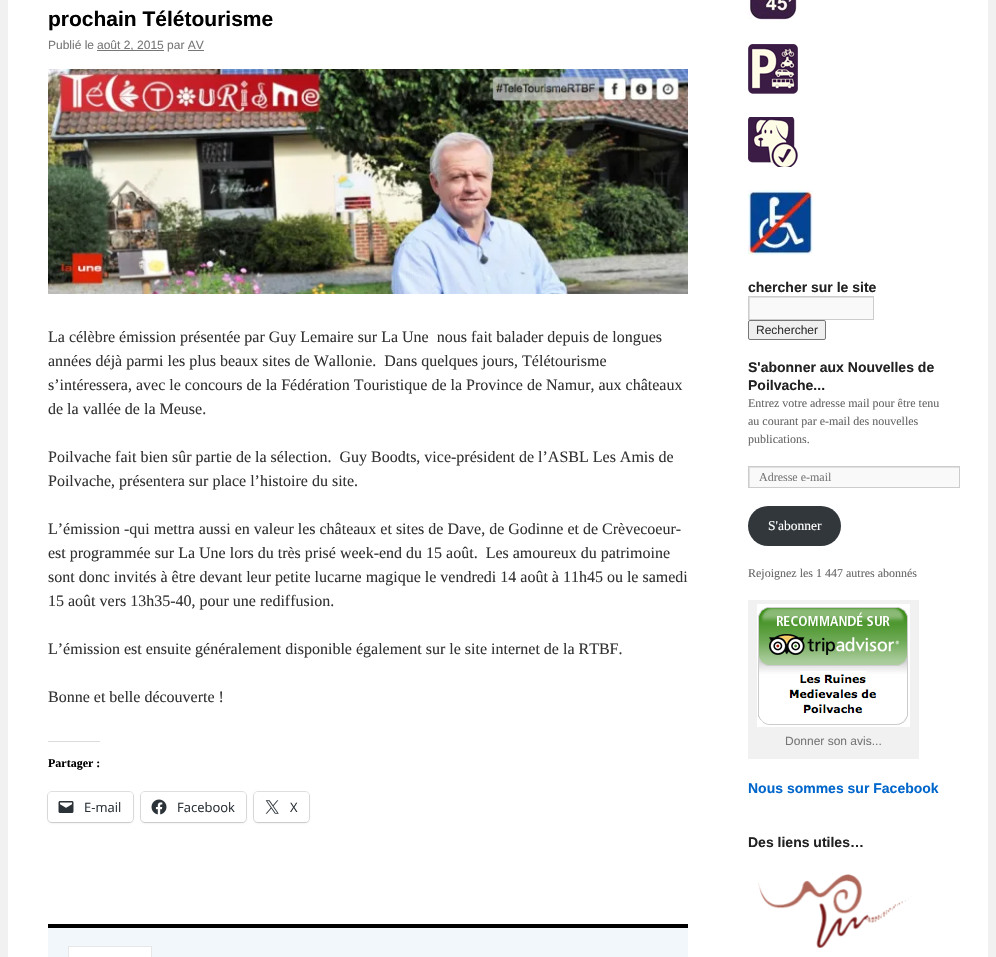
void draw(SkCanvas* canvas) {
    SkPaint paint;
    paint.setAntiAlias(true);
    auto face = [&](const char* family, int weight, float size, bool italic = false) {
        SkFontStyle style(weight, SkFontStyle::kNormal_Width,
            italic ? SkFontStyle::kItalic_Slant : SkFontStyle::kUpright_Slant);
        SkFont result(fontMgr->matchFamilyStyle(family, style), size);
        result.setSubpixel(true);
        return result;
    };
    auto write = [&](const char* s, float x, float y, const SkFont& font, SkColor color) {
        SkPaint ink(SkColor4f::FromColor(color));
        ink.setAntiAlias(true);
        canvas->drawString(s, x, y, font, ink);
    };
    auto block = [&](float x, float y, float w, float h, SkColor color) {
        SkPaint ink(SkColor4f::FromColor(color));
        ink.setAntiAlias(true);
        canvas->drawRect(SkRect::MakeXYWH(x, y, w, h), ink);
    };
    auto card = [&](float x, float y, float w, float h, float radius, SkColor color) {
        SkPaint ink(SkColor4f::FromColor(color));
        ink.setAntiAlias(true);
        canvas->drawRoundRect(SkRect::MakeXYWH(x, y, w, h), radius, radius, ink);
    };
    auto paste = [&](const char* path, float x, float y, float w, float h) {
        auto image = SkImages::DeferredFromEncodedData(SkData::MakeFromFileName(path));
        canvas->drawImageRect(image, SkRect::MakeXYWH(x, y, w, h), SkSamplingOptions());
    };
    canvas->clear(SkColorSetRGB(241, 241, 241));
    block(8, 0, 980, 957, SK_ColorWHITE);
    auto kFont1 = face("Liberation Sans", 700, 21);
    write("prochain Télétourisme", 48, 26, kFont1, SK_ColorBLACK);
    auto kFont2 = face("Liberation Sans", 400, 12);
    write("Publié le", 48, 49, kFont2, SkColorSetRGB(119, 119, 119));
    block(97, 50, 67, 1, SkColorSetRGB(119, 119, 119));
    write("août 2, 2015 par AV", 97, 49, kFont2, SkColorSetRGB(119, 119, 119));
    block(188, 50, 16, 1, SkColorSetRGB(119, 119, 119));
    paste("pic1.png", 48, 69, 640, 225);
    auto kFont3 = face("Liberation Serif", 400, 16);
    write("La célèbre émission présentée par Guy Lemaire sur La Une  nous fait balader depuis de longues", 48, 342, kFont3, SkColorSetRGB(51, 51, 51));
    write("années déjà parmi les plus beaux sites de Wallonie.  Dans quelques jours, Télétourisme", 48, 366, kFont3, SkColorSetRGB(51, 51, 51));
    write("s’intéressera, avec le concours de la Fédération Touristique de la Province de Namur, aux châteaux", 48, 390, kFont3, SkColorSetRGB(51, 51, 51));
    write("de la vallée de la Meuse.", 48, 414, kFont3, SkColorSetRGB(51, 51, 51));
    write("Poilvache fait bien sûr partie de la sélection.  Guy Boodts, vice-président de l’ASBL Les Amis de", 48, 462, kFont3, SkColorSetRGB(51, 51, 51));
    write("Poilvache, présentera sur place l’histoire du site.", 48, 486, kFont3, SkColorSetRGB(51, 51, 51));
    write("L’émission -qui mettra aussi en valeur les châteaux et sites de Dave, de Godinne et de Crèvecoeur-", 48, 534, kFont3, SkColorSetRGB(51, 51, 51));
    write("est programmée sur La Une lors du très prisé week-end du 15 août.  Les amoureux du patrimoine", 48, 558, kFont3, SkColorSetRGB(51, 51, 51));
    write("sont donc invités à être devant leur petite lucarne magique le vendredi 14 août à 11h45 ou le samedi", 48, 582, kFont3, SkColorSetRGB(51, 51, 51));
    write("15 août vers 13h35-40, pour une rediffusion.", 48, 606, kFont3, SkColorSetRGB(51, 51, 51));
    write("L’émission est ensuite généralement disponible également sur le site internet de la RTBF.", 48, 654, kFont3, SkColorSetRGB(51, 51, 51));
    write("Bonne et belle découverte !", 48, 702, kFont3, SkColorSetRGB(51, 51, 51));
    block(48, 741, 52, 1, SkColorSetRGB(220, 220, 222));
    auto kFont4 = face("Liberation Serif", 700, 12);
    write("Partager :", 48, 767, kFont4, SK_ColorBLACK);
    paint.setStyle(SkPaint::kStroke_Style);
    paint.setStrokeWidth(1);
    paint.setColor(SkColorSetRGB(224, 224, 224));
    canvas->drawRoundRect(SkRect::MakeXYWH(47.5f, 791.5f, 86, 31), 4.5f, 4.5f, paint);
    paint.setStyle(SkPaint::kFill_Style);
    paint.setColor(SkColorSetARGB(31, 0, 0, 0));
    paint.setMaskFilter(SkMaskFilter::MakeBlur(kNormal_SkBlurStyle, 1));
    canvas->drawRoundRect(SkRect::MakeXYWH(48, 793, 85, 30), 4, 4, paint);
    paint.setMaskFilter(nullptr);
    card(48, 792, 85, 30, 4, SK_ColorWHITE);
    paste("pic2.png", 58, 801, 16, 12);
    auto kFont5 = face("Open Sans", 400, 13);
    write("E-mail", 84, 812, kFont5, SkColorSetRGB(44, 51, 56));
    paint.setStyle(SkPaint::kStroke_Style);
    paint.setColor(SkColorSetRGB(224, 224, 224));
    canvas->drawRoundRect(SkRect::MakeXYWH(140.5f, 791.5f, 106, 31), 4.5f, 4.5f, paint);
    paint.setStyle(SkPaint::kFill_Style);
    paint.setColor(SkColorSetARGB(31, 0, 0, 0));
    paint.setMaskFilter(SkMaskFilter::MakeBlur(kNormal_SkBlurStyle, 1));
    canvas->drawRoundRect(SkRect::MakeXYWH(141, 793, 105, 30), 4, 4, paint);
    paint.setMaskFilter(nullptr);
    card(141, 792, 105, 30, 4, SK_ColorWHITE);
    paste("pic3.png", 151, 799, 16, 16);
    write("Facebook", 177, 812, kFont5, SkColorSetRGB(44, 51, 56));
    paint.setStyle(SkPaint::kStroke_Style);
    paint.setColor(SkColorSetRGB(224, 224, 224));
    canvas->drawRoundRect(SkRect::MakeXYWH(253.5f, 791.5f, 56, 31), 4.5f, 4.5f, paint);
    paint.setStyle(SkPaint::kFill_Style);
    paint.setColor(SkColorSetARGB(31, 0, 0, 0));
    paint.setMaskFilter(SkMaskFilter::MakeBlur(kNormal_SkBlurStyle, 1));
    canvas->drawRoundRect(SkRect::MakeXYWH(254, 793, 55, 30), 4, 4, paint);
    paint.setMaskFilter(nullptr);
    card(254, 792, 55, 30, 4, SK_ColorWHITE);
    paste("pic4.png", 265, 800, 14, 14);
    write("X", 290, 812, kFont5, SkColorSetRGB(44, 51, 56));
    block(48, 928, 640, 29, SkColorSetRGB(242, 247, 252));
    block(48, 924, 640, 4, SK_ColorBLACK);
    paint.setColor(SK_ColorWHITE);
    canvas->drawRect(SkRect::MakeXYWH(68.5f, 946.5f, 83, 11), paint);
    paint.setStyle(SkPaint::kStroke_Style);
    paint.setColor(SkColorSetRGB(231, 231, 231));
    canvas->drawRect(SkRect::MakeXYWH(68.5f, 946.5f, 83, 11), paint);
    paste("pic5.png", 748, 0, 49, 20);
    paste("pic6.png", 748, 44, 50, 50);
    paste("pic7.png", 748, 117, 50, 50);
    paste("pic8.png", 748, 190, 65, 65);
    auto kFont6 = face("Liberation Sans", 700, 14);
    write("chercher sur le site", 748, 292, kFont6, SkColorSetRGB(34, 34, 34));
    block(750, 298, 123, 21, SkColorSetRGB(249, 249, 249));
    canvas->save();
    canvas->clipRect(SkRect::MakeXYWH(749, 297, 124, 22));
    paint.setStyle(SkPaint::kFill_Style);
    paint.setColor(SkColorSetRGB(224, 224, 224));
    canvas->drawPath(SkPathBuilder(SkPathFillType::kEvenOdd).moveTo(650, 198).lineTo(972, 198).lineTo(972, 418).lineTo(650, 418).close().moveTo(750, 298).lineTo(874, 298).lineTo(874, 320).lineTo(750, 320).close().detach(), paint);
    canvas->restore();
    paint.setStyle(SkPaint::kStroke_Style);
    paint.setColor(SkColorSetRGB(204, 204, 204));
    canvas->drawRect(SkRect::MakeXYWH(748.5f, 296.5f, 125, 23), paint);
    paint.setStyle(SkPaint::kFill_Style);
    paint.setColor(SkColorSetRGB(239, 239, 239));
    canvas->drawRoundRect(SkRect::MakeXYWH(748.5f, 320.5f, 77, 19), 1.5f, 1.5f, paint);
    paint.setStyle(SkPaint::kStroke_Style);
    paint.setColor(SkColorSetRGB(118, 118, 118));
    canvas->drawRoundRect(SkRect::MakeXYWH(748.5f, 320.5f, 77, 19), 1.5f, 1.5f, paint);
    write("Rechercher", 756, 334, kFont2, SkColorSetRGB(51, 51, 51));
    write("S'abonner aux Nouvelles de", 748, 372, kFont6, SkColorSetRGB(34, 34, 34));
    write("Poilvache...", 748, 390, kFont6, SkColorSetRGB(34, 34, 34));
    auto kFont7 = face("Liberation Serif", 400, 12);
    write("Entrez votre adresse mail pour être tenu", 748, 407, kFont7, SkColorSetRGB(102, 102, 102));
    write("au courant par e-mail des nouvelles", 748, 425, kFont7, SkColorSetRGB(102, 102, 102));
    write("publications.", 748, 443, kFont7, SkColorSetRGB(102, 102, 102));
    block(750, 468, 209, 19, SkColorSetRGB(249, 249, 249));
    canvas->save();
    canvas->clipRect(SkRect::MakeXYWH(749, 467, 210, 20));
    paint.setStyle(SkPaint::kFill_Style);
    paint.setColor(SkColorSetRGB(224, 224, 224));
    canvas->drawPath(SkPathBuilder(SkPathFillType::kEvenOdd).moveTo(650, 368).lineTo(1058, 368).lineTo(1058, 586).lineTo(650, 586).close().moveTo(750, 468).lineTo(960, 468).lineTo(960, 488).lineTo(750, 488).close().detach(), paint);
    canvas->restore();
    paint.setStyle(SkPaint::kStroke_Style);
    paint.setColor(SkColorSetRGB(204, 204, 204));
    canvas->drawRect(SkRect::MakeXYWH(748.5f, 466.5f, 211, 21), paint);
    write("Adresse e-mail", 759, 481, kFont7, SkColorSetRGB(119, 119, 119));
    card(748, 506, 93, 40, 20, SkColorSetRGB(50, 55, 60));
    auto kFont8 = face("Liberation Serif", 400, 13.5f);
    write("S'abonner", 768, 530, kFont8, SK_ColorWHITE);
    write("Rejoignez les 1 447 autres abonnés", 748, 577, kFont7, SkColorSetRGB(102, 102, 102));
    block(748, 600, 171, 159, SkColorSetRGB(241, 241, 241));
    paste("pic9.png", 757, 604, 153, 123);
    write("Donner son avis...", 785, 745, kFont2, SkColorSetRGB(119, 119, 119));
    write("Nous sommes sur Facebook", 748, 793, kFont6, SkColorSetRGB(0, 102, 204));
    write("Des liens utiles…", 748, 847, kFont6, SkColorSetRGB(34, 34, 34));
    paste("pic10.png", 758, 874, 154, 74);
}
